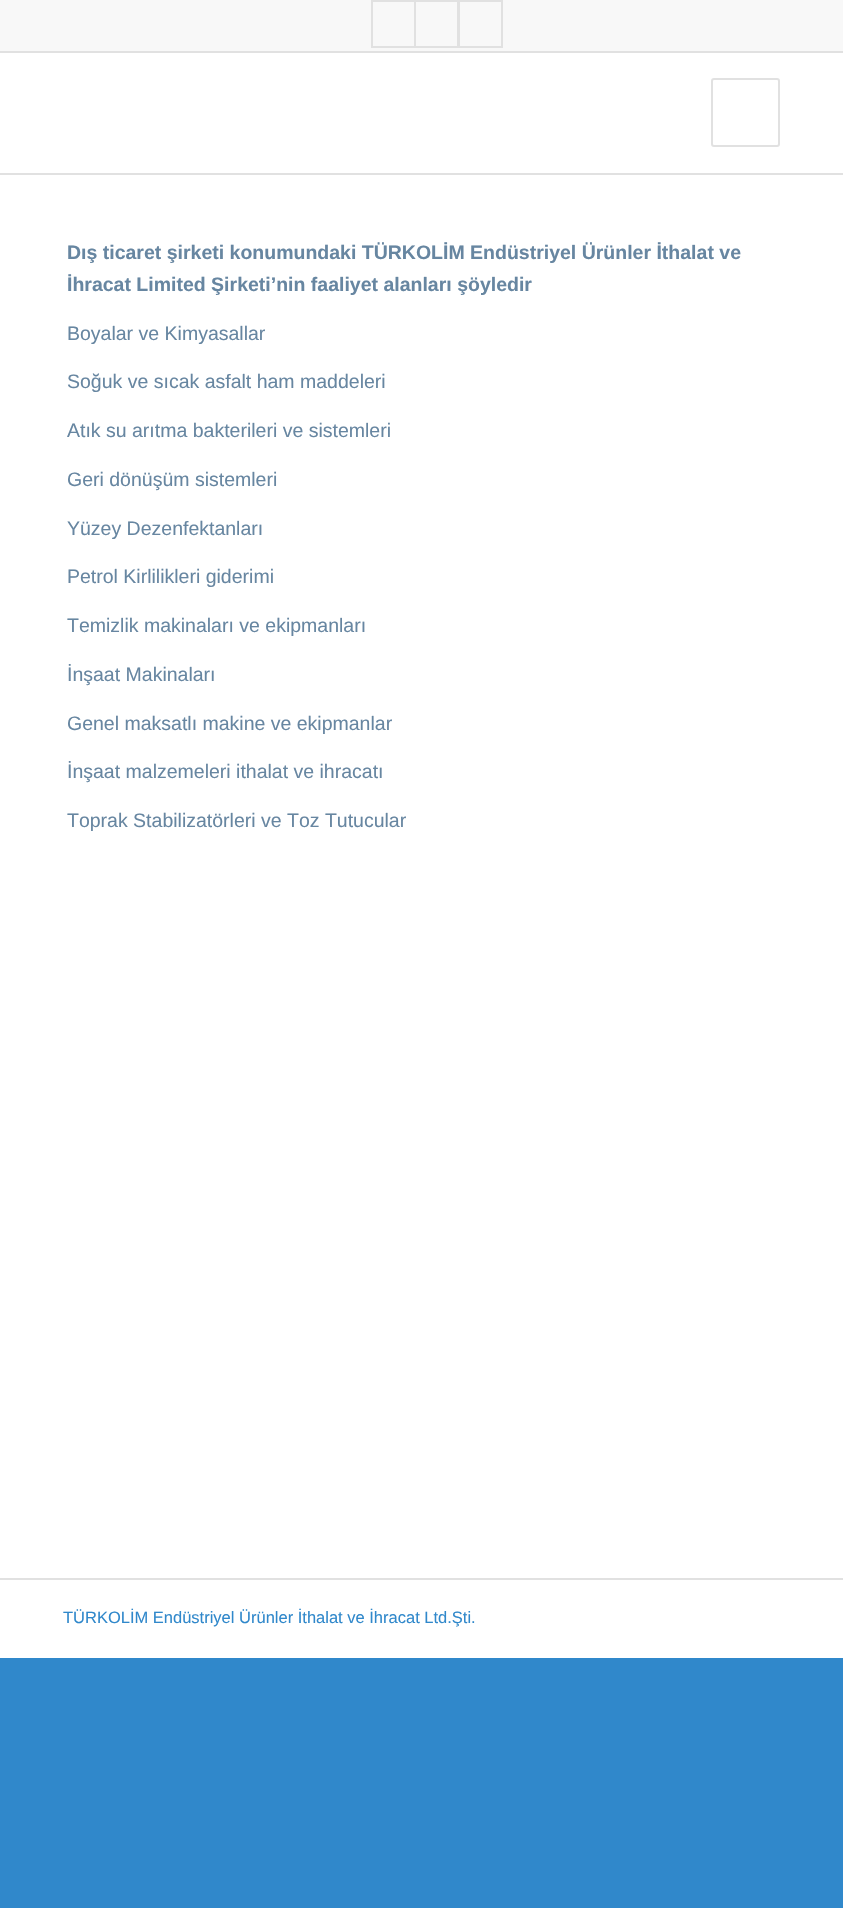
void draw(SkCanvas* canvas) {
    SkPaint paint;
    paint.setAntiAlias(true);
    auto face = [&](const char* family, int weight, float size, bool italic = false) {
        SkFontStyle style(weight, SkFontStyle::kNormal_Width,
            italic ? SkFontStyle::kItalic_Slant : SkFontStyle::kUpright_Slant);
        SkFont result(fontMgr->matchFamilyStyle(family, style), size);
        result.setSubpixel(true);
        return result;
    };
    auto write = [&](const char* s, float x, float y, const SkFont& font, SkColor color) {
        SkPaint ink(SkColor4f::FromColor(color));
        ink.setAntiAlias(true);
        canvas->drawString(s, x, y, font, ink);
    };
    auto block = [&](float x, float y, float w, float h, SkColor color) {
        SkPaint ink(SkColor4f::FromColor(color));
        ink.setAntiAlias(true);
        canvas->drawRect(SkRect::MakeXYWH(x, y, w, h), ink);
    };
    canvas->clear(SkColorSetRGB(48, 136, 203));
    block(0, 0, 843, 51, SkColorSetRGB(248, 248, 248));
    block(0, 51, 843, 2, SkColorSetRGB(225, 225, 225));
    paint.setStyle(SkPaint::kStroke_Style);
    paint.setStrokeWidth(2);
    paint.setColor(SkColorSetRGB(225, 225, 225));
    canvas->drawRect(SkRect::MakeXYWH(372, 1, 43, 46), paint);
    canvas->drawRect(SkRect::MakeXYWH(415, 1, 43, 46), paint);
    canvas->drawRect(SkRect::MakeXYWH(459, 1, 43, 46), paint);
    block(0, 53, 843, 120, SK_ColorWHITE);
    block(0, 173, 843, 2, SkColorSetRGB(225, 225, 225));
    canvas->drawRoundRect(SkRect::MakeXYWH(712, 79, 67, 67), 2, 2, paint);
    block(0, 175, 843, 1483, SK_ColorWHITE);
    auto kFont1 = face("Liberation Sans", 700, 19.5f);
    write("Dış ticaret şirketi konumundaki TÜRKOLİM Endüstriyel Ürünler İthalat ve", 67, 259, kFont1, SkColorSetRGB(103, 134, 161));
    write("İhracat Limited Şirketi’nin faaliyet alanları şöyledir", 67, 291, kFont1, SkColorSetRGB(103, 134, 161));
    auto kFont2 = face("Liberation Sans", 400, 19.5f);
    write("Boyalar ve Kimyasallar", 67, 340, kFont2, SkColorSetRGB(103, 134, 161));
    write("Soğuk ve sıcak asfalt ham maddeleri", 67, 388, kFont2, SkColorSetRGB(103, 134, 161));
    write("Atık su arıtma bakterileri ve sistemleri", 67, 437, kFont2, SkColorSetRGB(103, 134, 161));
    write("Geri dönüşüm sistemleri", 67, 486, kFont2, SkColorSetRGB(103, 134, 161));
    write("Yüzey Dezenfektanları", 67, 535, kFont2, SkColorSetRGB(103, 134, 161));
    write("Petrol Kirlilikleri giderimi", 67, 583, kFont2, SkColorSetRGB(103, 134, 161));
    write("Temizlik makinaları ve ekipmanları", 67, 632, kFont2, SkColorSetRGB(103, 134, 161));
    write("İnşaat Makinaları", 67, 681, kFont2, SkColorSetRGB(103, 134, 161));
    write("Genel maksatlı makine ve ekipmanlar", 67, 730, kFont2, SkColorSetRGB(103, 134, 161));
    write("İnşaat malzemeleri ithalat ve ihracatı", 67, 778, kFont2, SkColorSetRGB(103, 134, 161));
    write("Toprak Stabilizatörleri ve Toz Tutucular", 67, 827, kFont2, SkColorSetRGB(103, 134, 161));
    block(0, 1578, 843, 2, SkColorSetRGB(225, 225, 225));
    auto kFont3 = face("Liberation Sans", 400, 16.5f);
    write("TÜRKOLİM Endüstriyel Ürünler İthalat ve İhracat Ltd.Şti.", 63, 1623, kFont3, SkColorSetRGB(48, 136, 203));
}
